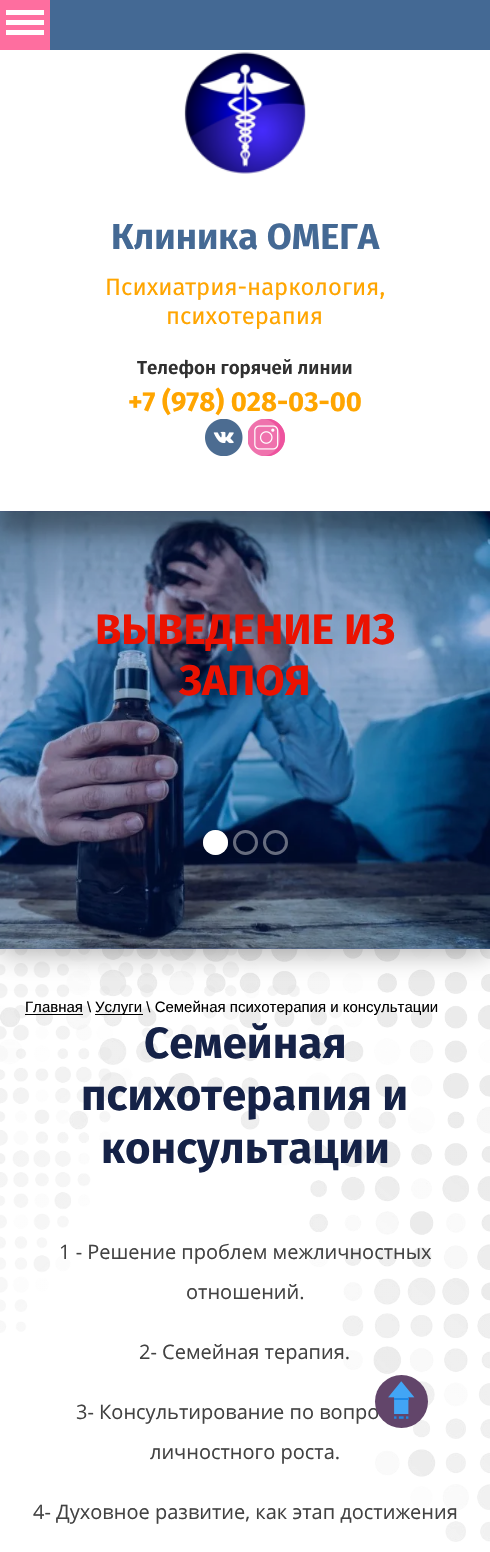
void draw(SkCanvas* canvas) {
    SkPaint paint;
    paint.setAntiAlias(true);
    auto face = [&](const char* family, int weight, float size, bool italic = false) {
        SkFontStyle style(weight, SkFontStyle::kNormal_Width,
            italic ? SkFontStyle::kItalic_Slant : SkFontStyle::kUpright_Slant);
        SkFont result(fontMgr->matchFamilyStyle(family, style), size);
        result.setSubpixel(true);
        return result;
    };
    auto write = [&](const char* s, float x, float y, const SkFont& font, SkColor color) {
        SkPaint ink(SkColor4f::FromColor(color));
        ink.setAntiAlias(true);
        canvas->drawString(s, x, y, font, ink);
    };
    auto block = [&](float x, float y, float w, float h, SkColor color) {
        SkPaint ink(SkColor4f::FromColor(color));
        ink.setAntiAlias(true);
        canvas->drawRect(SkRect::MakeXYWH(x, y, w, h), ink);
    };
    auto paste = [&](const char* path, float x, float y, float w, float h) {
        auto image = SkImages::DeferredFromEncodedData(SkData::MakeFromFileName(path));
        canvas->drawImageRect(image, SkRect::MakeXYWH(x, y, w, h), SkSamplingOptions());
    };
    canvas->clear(SK_ColorWHITE);
    paste("pic5.png", 0, 949, 490, 593);
    paint.setColor(SkColorSetARGB(77, 0, 0, 0));
    paint.setMaskFilter(SkMaskFilter::MakeBlur(kNormal_SkBlurStyle, 12.5f));
    canvas->drawRect(SkRect::MakeXYWH(0, 516, 490, 438), paint);
    paint.setMaskFilter(nullptr);
    block(0, 511, 490, 438, SkColorSetRGB(126, 136, 165));
    paste("pic4.png", 0, 511, 490, 438);
    block(0, 511, 490, 438, SkColorSetARGB(77, 0, 33, 130));
    paint.setMaskFilter(SkMaskFilter::MakeBlur(kNormal_SkBlurStyle, 9.5f));
    canvas->drawRect(SkRect::MakeXYWH(0, 23, 490, 511), paint);
    paint.setMaskFilter(nullptr);
    block(50, 0, 440, 50, SkColorSetRGB(68, 105, 148));
    block(0, 0, 50, 50, SkColorSetRGB(254, 110, 159));
    block(6, 10, 38, 5, SK_ColorWHITE);
    block(6, 20, 38, 5, SK_ColorWHITE);
    block(6, 30, 38, 5, SK_ColorWHITE);
    block(0, 50, 490, 461, SK_ColorWHITE);
    paste("pic1.png", 184, 52, 122, 122);
    auto kFont1 = face("Fira Sans", 700, 36.25f);
    write("Клиника ОМЕГА", 111, 249, kFont1, SkColorSetRGB(68, 105, 148));
    auto kFont2 = face("Fira Sans", 400, 23.75f);
    write("Психиатрия-наркология,", 105, 295, kFont2, SkColorSetRGB(255, 165, 0));
    write("психотерапия", 166, 324, kFont2, SkColorSetRGB(255, 165, 0));
    auto kFont3 = face("Fira Sans", 600, 18.75f);
    write("Телефон горячей линии", 137, 374, kFont3, SkColorSetRGB(48, 48, 48));
    auto kFont4 = face("Fira Sans", 700, 27.5f);
    write("+7 (978) 028-03-00", 128, 411, kFont4, SkColorSetRGB(255, 165, 0));
    paste("pic2.png", 205, 419, 38, 37);
    paste("pic3.png", 248, 419, 37, 37);
    auto kFont5 = face("Fira Sans", 700, 42.5f);
    write("ВЫВЕДЕНИЕ ИЗ", 95, 644, kFont5, SkColorSetRGB(235, 18, 1));
    write("ЗАПОЯ", 179, 695, kFont5, SkColorSetRGB(235, 18, 1));
    paint.setColor(SK_ColorWHITE);
    canvas->drawCircle(215.5f, 842.5f, 12.5f, paint);
    paint.setStyle(SkPaint::kStroke_Style);
    paint.setStrokeWidth(3);
    paint.setColor(SkColorSetARGB(102, 255, 255, 255));
    canvas->drawCircle(215.5f, 842.5f, 11, paint);
    canvas->drawCircle(245.5f, 842.5f, 11, paint);
    canvas->drawCircle(275.5f, 842.5f, 11, paint);
    auto kFont6 = face("Liberation Sans", 400, 15);
    write("Главная \\", 25, 1012, kFont6, SK_ColorBLACK);
    block(25, 1014, 58, 1, SK_ColorBLACK);
    block(95, 1014, 48, 1, SK_ColorBLACK);
    write("Услуги \\ Семейная психотерапия и консультации", 95, 1012, kFont6, SK_ColorBLACK);
    auto kFont7 = face("Fira Sans", 700, 43.75f);
    write("Семейная", 144, 1058, kFont7, SkColorSetRGB(21, 34, 71));
    write("психотерапия и", 81, 1110, kFont7, SkColorSetRGB(21, 34, 71));
    write("консультации", 101, 1163, kFont7, SkColorSetRGB(21, 34, 71));
    auto kFont8 = face("Open Sans", 400, 20);
    write("1 - Решение проблем межличностных", 59, 1259, kFont8, SkColorSetRGB(66, 66, 66));
    write("отношений.", 186, 1299, kFont8, SkColorSetRGB(66, 66, 66));
    write("2- Семейная терапия.", 139, 1359, kFont8, SkColorSetRGB(66, 66, 66));
    write("3- Консультирование по вопро", 76, 1419, kFont8, SkColorSetRGB(66, 66, 66));
    write("личностного роста.", 150, 1459, kFont8, SkColorSetRGB(66, 66, 66));
    write("4- Духовное развитие, как этап достижения", 33, 1519, kFont8, SkColorSetRGB(66, 66, 66));
    paint.setStyle(SkPaint::kFill_Style);
    paint.setColor(SkColorSetRGB(98, 69, 106));
    canvas->drawCircle(401.5f, 1401.5f, 26.5f, paint);
    paste("pic6.png", 388, 1381, 27, 38);
}
